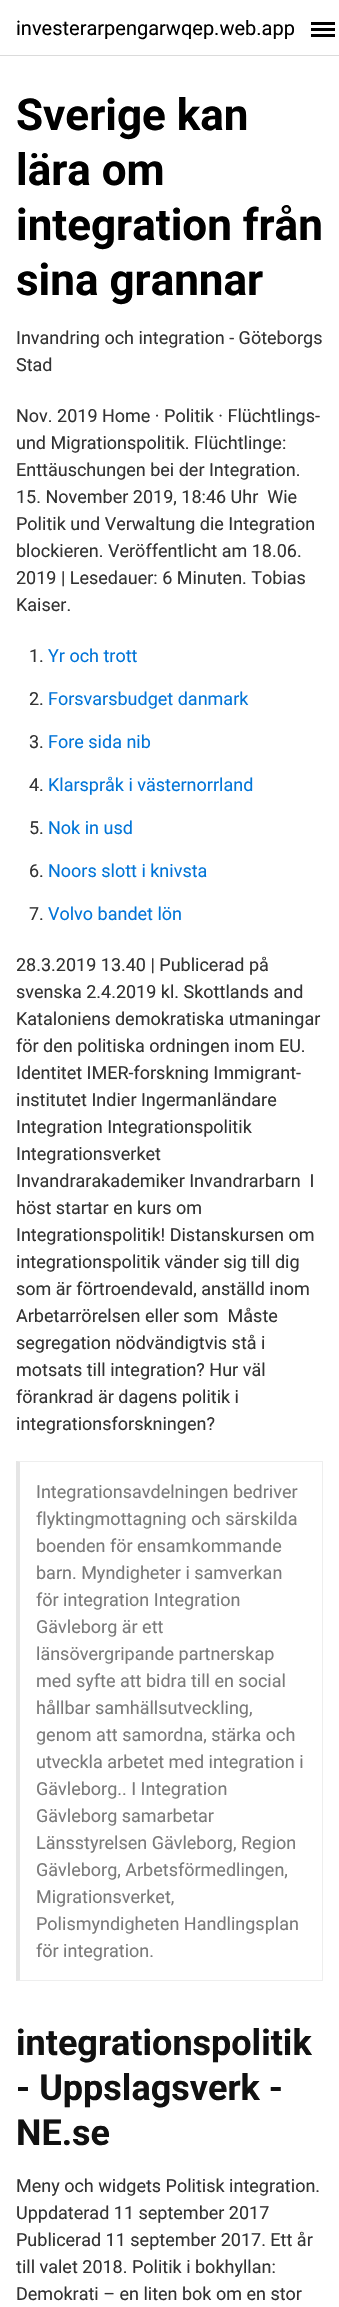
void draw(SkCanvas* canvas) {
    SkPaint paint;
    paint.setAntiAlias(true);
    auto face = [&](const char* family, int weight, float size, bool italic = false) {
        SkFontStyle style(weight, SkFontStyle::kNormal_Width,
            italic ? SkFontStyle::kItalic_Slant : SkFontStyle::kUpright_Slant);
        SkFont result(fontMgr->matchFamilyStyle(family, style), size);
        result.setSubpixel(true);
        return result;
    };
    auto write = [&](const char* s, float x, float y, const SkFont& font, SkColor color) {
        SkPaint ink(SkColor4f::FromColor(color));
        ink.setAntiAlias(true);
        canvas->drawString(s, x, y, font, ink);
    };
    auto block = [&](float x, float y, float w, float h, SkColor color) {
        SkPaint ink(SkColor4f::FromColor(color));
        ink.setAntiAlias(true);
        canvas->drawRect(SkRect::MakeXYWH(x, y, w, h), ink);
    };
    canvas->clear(SK_ColorWHITE);
    block(0, 55, 339, 1, SkColorSetRGB(219, 219, 219));
    auto kFont1 = face("Roboto", 400, 20);
    write("investerarpengarwqep.web.app", 16, 35, kFont1, SK_ColorBLACK);
    block(311, 28, 24, 3, SK_ColorBLACK);
    block(311, 22, 24, 3, SK_ColorBLACK);
    block(311, 34, 24, 3, SK_ColorBLACK);
    auto kFont2 = face("Roboto", 700, 44);
    write("Sverige kan", 16, 130, kFont2, SK_ColorBLACK);
    write("lära om", 16, 185, kFont2, SK_ColorBLACK);
    write("integration från", 16, 240, kFont2, SK_ColorBLACK);
    write("sina grannar", 16, 295, kFont2, SK_ColorBLACK);
    auto kFont3 = face("Roboto", 400, 18);
    write("Invandring och integration - Göteborgs", 16, 344, kFont3, SkColorSetRGB(51, 51, 51));
    write("Stad", 16, 371, kFont3, SkColorSetRGB(51, 51, 51));
    write("Nov. 2019 Home · Politik · Flüchtlings-", 16, 422, kFont3, SkColorSetRGB(51, 51, 51));
    write("und Migrationspolitik. Flüchtlinge:", 16, 449, kFont3, SkColorSetRGB(51, 51, 51));
    write("Enttäuschungen bei der Integration.", 16, 476, kFont3, SkColorSetRGB(51, 51, 51));
    write("15. November 2019, 18:46 Uhr  Wie", 16, 503, kFont3, SkColorSetRGB(51, 51, 51));
    write("Politik und Verwaltung die Integration", 16, 530, kFont3, SkColorSetRGB(51, 51, 51));
    write("blockieren. Veröffentlicht am 18.06.", 16, 557, kFont3, SkColorSetRGB(51, 51, 51));
    write("2019 | Lesedauer: 6 Minuten. Tobias", 16, 584, kFont3, SkColorSetRGB(51, 51, 51));
    write("Kaiser.", 16, 611, kFont3, SkColorSetRGB(51, 51, 51));
    write("1.", 29, 662, kFont3, SkColorSetRGB(51, 51, 51));
    write("Yr och trott", 48, 662, kFont3, SkColorSetRGB(2, 117, 216));
    write("2.", 29, 705, kFont3, SkColorSetRGB(51, 51, 51));
    write("Forsvarsbudget danmark", 48, 705, kFont3, SkColorSetRGB(2, 117, 216));
    write("3.", 29, 748, kFont3, SkColorSetRGB(51, 51, 51));
    write("Fore sida nib", 48, 748, kFont3, SkColorSetRGB(2, 117, 216));
    write("4.", 29, 791, kFont3, SkColorSetRGB(51, 51, 51));
    write("Klarspråk i västernorrland", 48, 791, kFont3, SkColorSetRGB(2, 117, 216));
    write("5.", 29, 834, kFont3, SkColorSetRGB(51, 51, 51));
    write("Nok in usd", 48, 834, kFont3, SkColorSetRGB(2, 117, 216));
    write("6.", 29, 877, kFont3, SkColorSetRGB(51, 51, 51));
    write("Noors slott i knivsta", 48, 877, kFont3, SkColorSetRGB(2, 117, 216));
    write("7.", 29, 920, kFont3, SkColorSetRGB(51, 51, 51));
    write("Volvo bandet lön", 48, 920, kFont3, SkColorSetRGB(2, 117, 216));
    write("28.3.2019 13.40 | Publicerad på", 16, 971, kFont3, SkColorSetRGB(51, 51, 51));
    write("svenska 2.4.2019 kl. Skottlands and", 16, 998, kFont3, SkColorSetRGB(51, 51, 51));
    write("Kataloniens demokratiska utmaningar", 16, 1025, kFont3, SkColorSetRGB(51, 51, 51));
    write("för den politiska ordningen inom EU.", 16, 1052, kFont3, SkColorSetRGB(51, 51, 51));
    write("Identitet IMER-forskning Immigrant-", 16, 1079, kFont3, SkColorSetRGB(51, 51, 51));
    write("institutet Indier Ingermanländare", 16, 1106, kFont3, SkColorSetRGB(51, 51, 51));
    write("Integration Integrationspolitik", 16, 1133, kFont3, SkColorSetRGB(51, 51, 51));
    write("Integrationsverket", 16, 1160, kFont3, SkColorSetRGB(51, 51, 51));
    write("Invandrarakademiker Invandrarbarn  I", 16, 1187, kFont3, SkColorSetRGB(51, 51, 51));
    write("höst startar en kurs om", 16, 1214, kFont3, SkColorSetRGB(51, 51, 51));
    write("Integrationspolitik! Distanskursen om", 16, 1241, kFont3, SkColorSetRGB(51, 51, 51));
    write("integrationspolitik vänder sig till dig", 16, 1268, kFont3, SkColorSetRGB(51, 51, 51));
    write("som är förtroendevald, anställd inom", 16, 1295, kFont3, SkColorSetRGB(51, 51, 51));
    write("Arbetarrörelsen eller som  Måste", 16, 1322, kFont3, SkColorSetRGB(51, 51, 51));
    write("segregation nödvändigtvis stå i", 16, 1349, kFont3, SkColorSetRGB(51, 51, 51));
    write("motsats till integration? Hur väl", 16, 1376, kFont3, SkColorSetRGB(51, 51, 51));
    write("förankrad är dagens politik i", 16, 1403, kFont3, SkColorSetRGB(51, 51, 51));
    write("integrationsforskningen?", 16, 1430, kFont3, SkColorSetRGB(51, 51, 51));
    paint.setColor(SkColorSetRGB(238, 238, 238));
    canvas->drawPath(SkPathBuilder().moveTo(16, 1461).lineTo(323, 1461).lineTo(322, 1462).lineTo(20, 1462).close().detach(), paint);
    block(322, 1461, 1, 520, SkColorSetRGB(238, 238, 238));
    canvas->drawPath(SkPathBuilder().moveTo(323, 1981).lineTo(16, 1981).lineTo(20, 1980).lineTo(322, 1980).close().detach(), paint);
    paint.setColor(SkColorSetARGB(26, 0, 0, 0));
    canvas->drawPath(SkPathBuilder().moveTo(16, 1981).lineTo(16, 1461).lineTo(20, 1462).lineTo(20, 1980).close().detach(), paint);
    write("Integrationsavdelningen bedriver", 36, 1498, kFont3, SkColorSetRGB(122, 122, 122));
    write("flyktingmottagning och särskilda", 36, 1525, kFont3, SkColorSetRGB(122, 122, 122));
    write("boenden för ensamkommande", 36, 1552, kFont3, SkColorSetRGB(122, 122, 122));
    write("barn. Myndigheter i samverkan", 36, 1579, kFont3, SkColorSetRGB(122, 122, 122));
    write("för integration Integration", 36, 1606, kFont3, SkColorSetRGB(122, 122, 122));
    write("Gävleborg är ett", 36, 1633, kFont3, SkColorSetRGB(122, 122, 122));
    write("länsövergripande partnerskap", 36, 1660, kFont3, SkColorSetRGB(122, 122, 122));
    write("med syfte att bidra till en social", 36, 1687, kFont3, SkColorSetRGB(122, 122, 122));
    write("hållbar samhällsutveckling,", 36, 1714, kFont3, SkColorSetRGB(122, 122, 122));
    write("genom att samordna, stärka och", 36, 1741, kFont3, SkColorSetRGB(122, 122, 122));
    write("utveckla arbetet med integration i", 36, 1768, kFont3, SkColorSetRGB(122, 122, 122));
    write("Gävleborg.. I Integration", 36, 1795, kFont3, SkColorSetRGB(122, 122, 122));
    write("Gävleborg samarbetar", 36, 1822, kFont3, SkColorSetRGB(122, 122, 122));
    write("Länsstyrelsen Gävleborg, Region", 36, 1849, kFont3, SkColorSetRGB(122, 122, 122));
    write("Gävleborg, Arbetsförmedlingen,", 36, 1876, kFont3, SkColorSetRGB(122, 122, 122));
    write("Migrationsverket,", 36, 1903, kFont3, SkColorSetRGB(122, 122, 122));
    write("Polismyndigheten Handlingsplan", 36, 1930, kFont3, SkColorSetRGB(122, 122, 122));
    write("för integration.", 36, 1957, kFont3, SkColorSetRGB(122, 122, 122));
    auto kFont4 = face("Roboto", 700, 36);
    write("integrationspolitik", 16, 2055, kFont4, SkColorSetRGB(17, 17, 17));
    write("- Uppslagsverk -", 16, 2100, kFont4, SkColorSetRGB(17, 17, 17));
    write("NE.se", 16, 2145, kFont4, SkColorSetRGB(17, 17, 17));
    write("Meny och widgets Politisk integration.", 16, 2192, kFont3, SkColorSetRGB(51, 51, 51));
    write("Uppdaterad 11 september 2017", 16, 2219, kFont3, SkColorSetRGB(51, 51, 51));
    write("Publicerad 11 september 2017. Ett år", 16, 2246, kFont3, SkColorSetRGB(51, 51, 51));
    write("till valet 2018. Politik i bokhyllan:", 16, 2273, kFont3, SkColorSetRGB(51, 51, 51));
    write("Demokrati – en liten bok om en stor", 16, 2300, kFont3, SkColorSetRGB(51, 51, 51));
}
